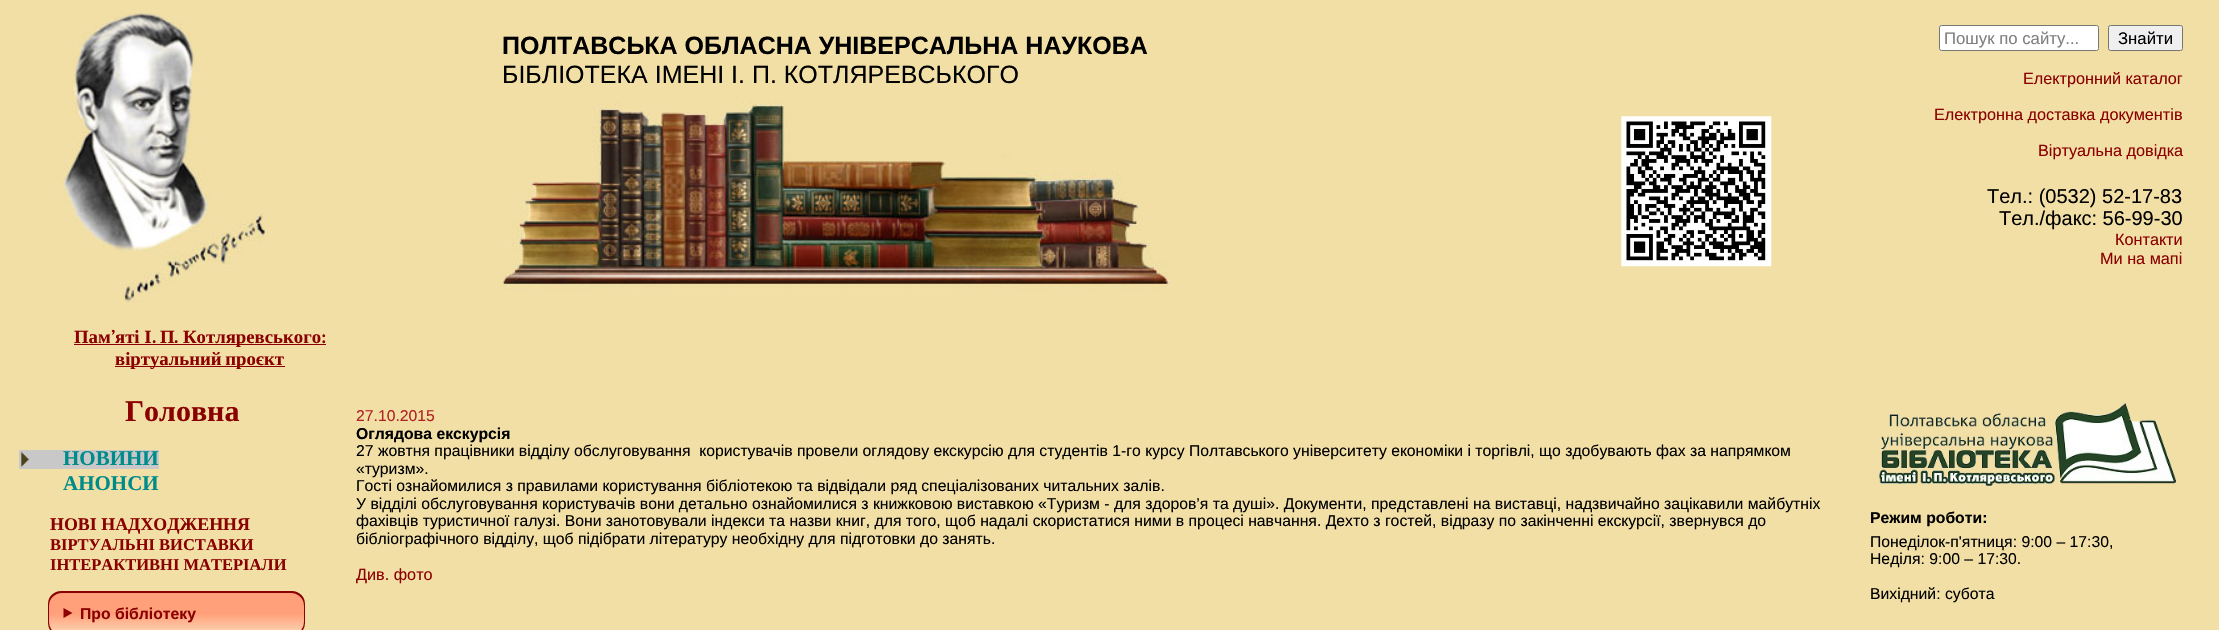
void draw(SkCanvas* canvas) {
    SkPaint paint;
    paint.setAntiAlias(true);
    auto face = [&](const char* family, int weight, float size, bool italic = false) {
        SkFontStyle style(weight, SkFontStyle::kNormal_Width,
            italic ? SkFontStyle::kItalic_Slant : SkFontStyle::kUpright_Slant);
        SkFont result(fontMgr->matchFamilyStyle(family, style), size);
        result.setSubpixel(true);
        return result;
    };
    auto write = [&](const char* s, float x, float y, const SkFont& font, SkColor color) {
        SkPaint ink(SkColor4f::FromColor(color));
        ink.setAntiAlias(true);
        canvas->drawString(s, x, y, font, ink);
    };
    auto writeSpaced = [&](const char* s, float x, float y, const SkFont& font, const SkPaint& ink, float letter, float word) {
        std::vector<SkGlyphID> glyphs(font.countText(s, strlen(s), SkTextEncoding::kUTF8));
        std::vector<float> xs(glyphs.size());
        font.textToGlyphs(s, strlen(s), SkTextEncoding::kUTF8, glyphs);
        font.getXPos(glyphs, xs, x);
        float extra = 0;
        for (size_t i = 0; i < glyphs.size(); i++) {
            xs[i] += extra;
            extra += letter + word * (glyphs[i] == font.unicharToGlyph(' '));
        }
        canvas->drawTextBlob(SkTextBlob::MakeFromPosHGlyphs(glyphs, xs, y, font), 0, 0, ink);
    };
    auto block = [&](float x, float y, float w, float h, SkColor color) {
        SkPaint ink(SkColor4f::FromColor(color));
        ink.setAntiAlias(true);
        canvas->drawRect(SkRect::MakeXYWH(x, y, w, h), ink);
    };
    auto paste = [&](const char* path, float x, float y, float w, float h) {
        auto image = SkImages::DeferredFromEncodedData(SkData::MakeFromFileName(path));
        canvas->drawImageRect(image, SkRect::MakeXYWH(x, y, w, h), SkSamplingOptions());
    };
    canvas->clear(SkColorSetRGB(241, 223, 165));
    auto kFont1 = face("Liberation Sans", 700, 25);
    write("ПОЛТАВСЬКА ОБЛАСНА УНІВЕРСАЛЬНА НАУКОВА", 502, 54, kFont1, SK_ColorBLACK);
    auto kFont2 = face("Liberation Sans", 400, 25);
    write("БІБЛІОТЕКА ІМЕНІ І. П. КОТЛЯРЕВСЬКОГО", 502, 83, kFont2, SK_ColorBLACK);
    paste("pic1.png", 501, 101, 669, 190);
    paint.setColor(SK_ColorWHITE);
    canvas->drawRoundRect(SkRect::MakeXYWH(1939.5f, 25.5f, 159, 25), 2, 2, paint);
    paint.setStyle(SkPaint::kStroke_Style);
    paint.setStrokeWidth(1);
    paint.setColor(SkColorSetRGB(118, 118, 118));
    canvas->drawRoundRect(SkRect::MakeXYWH(1939.5f, 25.5f, 159, 25), 2, 2, paint);
    auto kFont3 = face("Liberation Sans", 400, 16.75f);
    write("Пошук по сайту...", 1944, 44, kFont3, SkColorSetRGB(128, 128, 128));
    paint.setStyle(SkPaint::kFill_Style);
    paint.setColor(SkColorSetRGB(239, 239, 239));
    canvas->drawRoundRect(SkRect::MakeXYWH(2108.5f, 25.5f, 74, 25), 2, 2, paint);
    paint.setStyle(SkPaint::kStroke_Style);
    paint.setColor(SkColorSetRGB(118, 118, 118));
    canvas->drawRoundRect(SkRect::MakeXYWH(2108.5f, 25.5f, 74, 25), 2, 2, paint);
    write("Знайти", 2118, 44, kFont3, SK_ColorBLACK);
    auto kFont4 = face("Liberation Sans", 400, 16.25f);
    write("Електронний каталог", 2023, 84, kFont4, SkColorSetRGB(139, 0, 0));
    write("Електронна доставка документів", 1934, 120, kFont4, SkColorSetRGB(139, 0, 0));
    write("Віртуальна довідка", 2038, 156, kFont4, SkColorSetRGB(139, 0, 0));
    auto kFont5 = face("Liberation Sans", 400, 20);
    write("Тел.: (0532) 52-17-83", 1987, 203, kFont5, SK_ColorBLACK);
    write("Тел./факс: 56-99-30", 1999, 225, kFont5, SK_ColorBLACK);
    write("Контакти", 2115, 245, kFont4, SkColorSetRGB(139, 0, 0));
    write("Ми на мапі", 2100, 264, kFont4, SkColorSetRGB(139, 0, 0));
    paste("pic2.png", 1621, 116, 151, 151);
    paste("pic3.png", 62, 12, 203, 291);
    auto kFont6 = face("Liberation Serif", 700, 18.75f);
    write("Пам", 74, 343, kFont6, SkColorSetRGB(139, 0, 0));
    auto kFont7 = face("Caladea", 700, 18.75f);
    write("’", 111, 343, kFont7, SkColorSetRGB(139, 0, 0));
    write("яті І", 115, 343, kFont6, SkColorSetRGB(139, 0, 0));
    write(".", 152, 343, kFont7, SkColorSetRGB(139, 0, 0));
    block(74, 344, 252, 1, SkColorSetRGB(139, 0, 0));
    write("П", 160, 343, kFont6, SkColorSetRGB(139, 0, 0));
    write(".", 174, 343, kFont7, SkColorSetRGB(139, 0, 0));
    write("Котляревського", 183, 343, kFont6, SkColorSetRGB(139, 0, 0));
    write(":", 321, 343, kFont7, SkColorSetRGB(139, 0, 0));
    block(115, 366, 170, 1, SkColorSetRGB(139, 0, 0));
    paint.setStyle(SkPaint::kFill_Style);
    paint.setColor(SkColorSetRGB(139, 0, 0));
    writeSpaced("віртуальний проєкт", 115, 365, kFont6, paint, 0, -1);
    auto kFont8 = face("Liberation Serif", 700, 30);
    write("Головна", 125, 421, kFont8, SkColorSetRGB(139, 0, 0));
    block(19, 450, 140, 19, SkColorSetRGB(200, 200, 200));
    paste("pic4.png", 21, 452, 8, 15);
    auto kFont9 = face("Liberation Serif", 700, 21);
    write("НОВИНИ", 63, 465, kFont9, SkColorSetRGB(0, 139, 139));
    write("АНОНСИ", 63, 490, kFont9, SkColorSetRGB(0, 139, 139));
    auto kFont10 = face("Liberation Serif", 700, 17.9f);
    write("НОВІ НАДХОДЖЕННЯ", 50, 530, kFont10, SkColorSetRGB(139, 0, 0));
    auto kFont11 = face("Liberation Serif", 700, 16.5f);
    write("ВІРТУАЛЬНІ ВИСТАВКИ", 50, 550, kFont11, SkColorSetRGB(139, 0, 0));
    write("ІНТЕРАКТИВНІ МАТЕРІАЛИ", 50, 570, kFont11, SkColorSetRGB(139, 0, 0));
    paint.setStyle(SkPaint::kStroke_Style);
    paint.setStrokeWidth(3);
    canvas->drawRoundRect(SkRect::MakeXYWH(49.5f, 592.5f, 254, 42), 11.5f, 11.5f, paint);
    paint.setStyle(SkPaint::kFill_Style);
    {
        const SkColor colors[] = {SkColorSetRGB(255, 160, 122), SkColorSetRGB(255, 218, 185)};
        const float stops[] = {0.5f, 1};
        const SkPoint ends[] = {{176, 593}, {176, 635}};
        paint.setShader(SkGradientShader::MakeLinear(ends, colors, stops, 2, SkTileMode::kClamp));
        paint.setAlpha(255);
    }
    canvas->drawRoundRect(SkRect::MakeXYWH(49, 593, 255, 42), 13, 13, paint);
    paint.setShader(nullptr);
    paint.setColor(SkColorSetRGB(139, 0, 0));
    canvas->drawPath(SkPathBuilder().moveTo(63.5f, 608).lineTo(72.5f, 613).lineTo(63.5f, 618).close().detach(), paint);
    auto kFont12 = face("Liberation Sans", 700, 15.75f);
    write("Про бібліотеку", 80, 619, kFont12, SkColorSetRGB(139, 0, 0));
    auto kFont13 = face("Liberation Sans", 400, 15.75f);
    write("27.10.2015", 356, 421, kFont13, SkColorSetRGB(178, 34, 34));
    write("Оглядова екскурсія", 356, 439, kFont12, SK_ColorBLACK);
    write("27 жовтня працівники відділу обслуговування  користувачів провели оглядову екскурсію для студентів 1-го курсу Полтавського університету економіки і торгівлі, що здобувають фах за напрямком", 356, 456, kFont13, SK_ColorBLACK);
    write("«туризм».", 356, 474, kFont13, SK_ColorBLACK);
    write("Гості ознайомилися з правилами користування бібліотекою та відвідали ряд спеціалізованих читальних залів.", 356, 491, kFont13, SK_ColorBLACK);
    write("У відділі обслуговування користувачів вони детально ознайомилися з книжковою виставкою «Туризм - для здоров’я та душі». Документи, представлені на виставці, надзвичайно зацікавили майбутніх", 356, 509, kFont13, SK_ColorBLACK);
    write("фахівців туристичної галузі. Вони занотовували індекси та назви книг, для того, щоб надалі скористатися ними в процесі навчання. Дехто з гостей, відразу по закінченні екскурсії, звернувся до", 356, 526, kFont13, SK_ColorBLACK);
    write("бібліографічного відділу, щоб підібрати літературу необхідну для підготовки до занять.", 356, 544, kFont13, SK_ColorBLACK);
    write("Див. фото", 356, 580, kFont4, SkColorSetRGB(139, 0, 0));
    paste("pic5.png", 1879, 403, 297, 84);
    write("Режим роботи:", 1870, 523, kFont12, SK_ColorBLACK);
    write("Понеділок-п'ятниця: 9:00 – 17:30,", 1870, 547, kFont13, SK_ColorBLACK);
    write("Неділя: 9:00 – 17:30.", 1870, 564, kFont13, SK_ColorBLACK);
    write("Вихідний: субота", 1870, 599, kFont13, SK_ColorBLACK);
}
